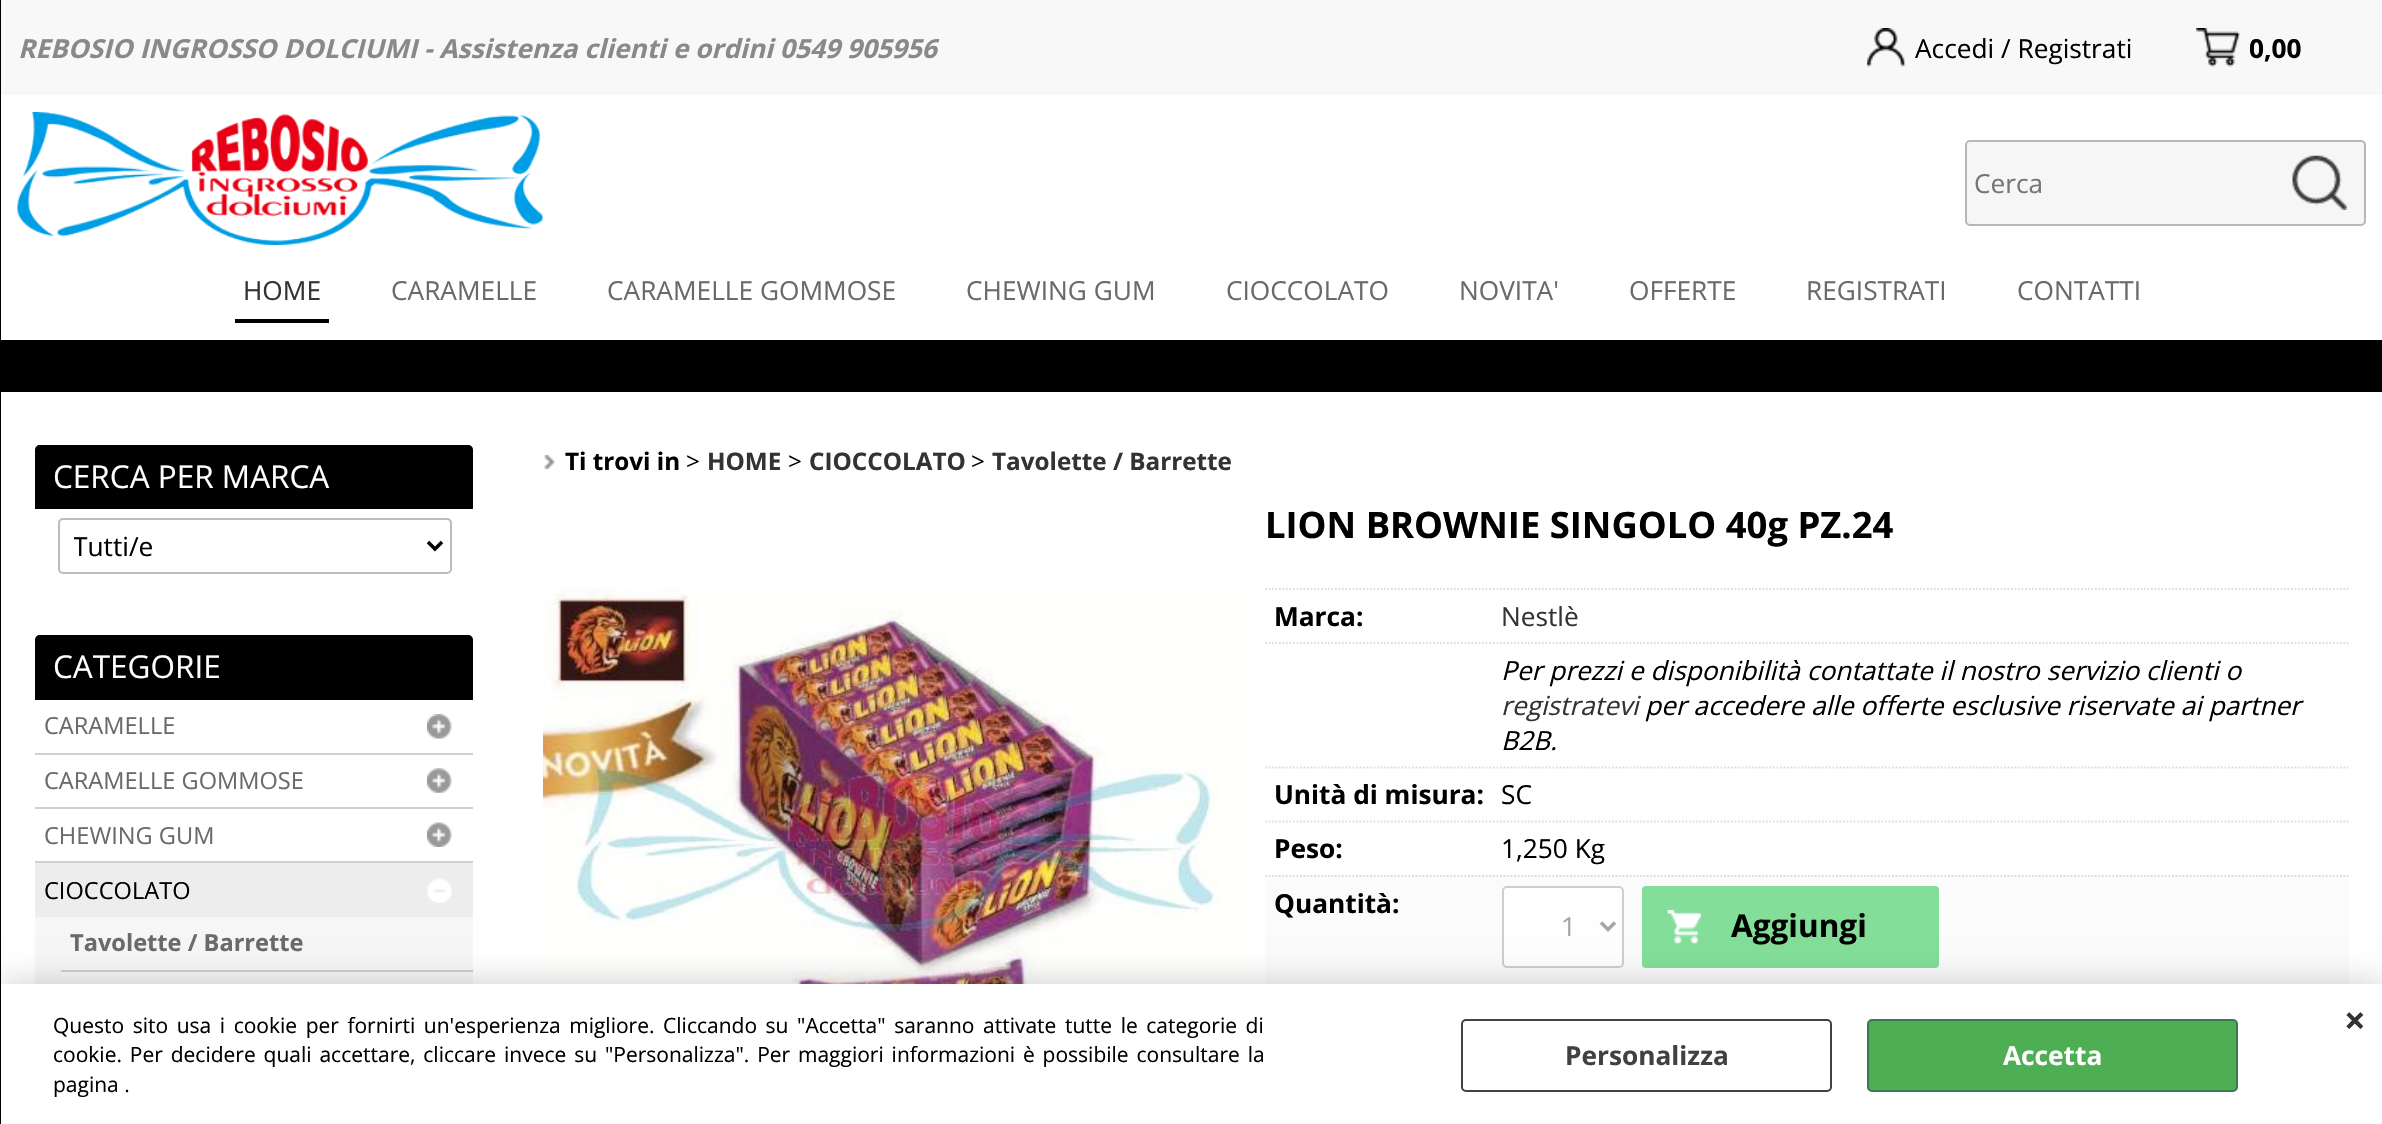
void draw(SkCanvas* canvas) {
    SkPaint paint;
    paint.setAntiAlias(true);
    auto face = [&](const char* family, int weight, float size, bool italic = false) {
        SkFontStyle style(weight, SkFontStyle::kNormal_Width,
            italic ? SkFontStyle::kItalic_Slant : SkFontStyle::kUpright_Slant);
        SkFont result(fontMgr->matchFamilyStyle(family, style), size);
        result.setSubpixel(true);
        return result;
    };
    auto write = [&](const char* s, float x, float y, const SkFont& font, SkColor color) {
        SkPaint ink(SkColor4f::FromColor(color));
        ink.setAntiAlias(true);
        canvas->drawString(s, x, y, font, ink);
    };
    auto writeSpaced = [&](const char* s, float x, float y, const SkFont& font, const SkPaint& ink, float letter, float word) {
        std::vector<SkGlyphID> glyphs(font.countText(s, strlen(s), SkTextEncoding::kUTF8));
        std::vector<float> xs(glyphs.size());
        font.textToGlyphs(s, strlen(s), SkTextEncoding::kUTF8, glyphs);
        font.getXPos(glyphs, xs, x);
        float extra = 0;
        for (size_t i = 0; i < glyphs.size(); i++) {
            xs[i] += extra;
            extra += letter + word * (glyphs[i] == font.unicharToGlyph(' '));
        }
        canvas->drawTextBlob(SkTextBlob::MakeFromPosHGlyphs(glyphs, xs, y, font), 0, 0, ink);
    };
    auto block = [&](float x, float y, float w, float h, SkColor color) {
        SkPaint ink(SkColor4f::FromColor(color));
        ink.setAntiAlias(true);
        canvas->drawRect(SkRect::MakeXYWH(x, y, w, h), ink);
    };
    auto card = [&](float x, float y, float w, float h, float radius, SkColor color) {
        SkPaint ink(SkColor4f::FromColor(color));
        ink.setAntiAlias(true);
        canvas->drawRoundRect(SkRect::MakeXYWH(x, y, w, h), radius, radius, ink);
    };
    auto paste = [&](const char* path, float x, float y, float w, float h) {
        auto image = SkImages::DeferredFromEncodedData(SkData::MakeFromFileName(path));
        canvas->drawImageRect(image, SkRect::MakeXYWH(x, y, w, h), SkSamplingOptions());
    };
    canvas->clear(SK_ColorWHITE);
    block(35, 917, 438, 67, SkColorSetRGB(246, 246, 246));
    block(61, 970, 412, 2, SkColorSetRGB(208, 208, 208));
    paste("pic10.png", 543, 587, 704, 397);
    block(1265, 875, 1084, 109, SkColorSetRGB(251, 251, 251));
    paint.setColor(SkColorSetRGB(254, 254, 254));
    canvas->drawRoundRect(SkRect::MakeXYWH(1503, 887, 120, 80), 4, 4, paint);
    paint.setStyle(SkPaint::kStroke_Style);
    paint.setStrokeWidth(2);
    paint.setColor(SkColorSetRGB(206, 206, 206));
    canvas->drawRoundRect(SkRect::MakeXYWH(1503, 887, 120, 80), 4, 4, paint);
    card(1642, 886, 297, 82, 4, SkColorSetRGB(130, 222, 153));
    paste("pic11.png", 1667, 910, 34, 34);
    paint.setStyle(SkPaint::kFill_Style);
    paint.setColor(SkColorSetARGB(51, 0, 0, 0));
    paint.setMaskFilter(SkMaskFilter::MakeBlur(kNormal_SkBlurStyle, 16));
    canvas->drawRect(SkRect::MakeXYWH(0, 984, 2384, 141), paint);
    paint.setMaskFilter(nullptr);
    block(0, 0, 1, 1124, SK_ColorBLACK);
    block(1, 0, 2381, 95, SkColorSetRGB(248, 248, 248));
    auto kFont1 = face("Open Sans", 700, 26.25f, true);
    write("REBOSIO INGROSSO DOLCIUMI - Assistenza clienti e ordini 0549 905956", 18, 58, kFont1, SkColorSetRGB(137, 137, 137));
    paste("pic1.png", 1867, 28, 39, 39);
    auto kFont2 = face("Open Sans", 400, 26.25f);
    write("Accedi / Registrati", 1915, 58, kFont2, SK_ColorBLACK);
    paste("pic2.png", 2196, 28, 44, 39);
    auto kFont3 = face("Open Sans", 700, 26.25f);
    write("0,00", 2249, 58, kFont3, SK_ColorBLACK);
    paste("pic3.png", 17, 112, 526, 133);
    paint.setColor(SkColorSetRGB(246, 246, 246));
    canvas->drawRoundRect(SkRect::MakeXYWH(1966, 141, 399, 84), 4, 4, paint);
    paint.setStyle(SkPaint::kStroke_Style);
    paint.setColor(SkColorSetRGB(183, 183, 183));
    canvas->drawRoundRect(SkRect::MakeXYWH(1966, 141, 399, 84), 4, 4, paint);
    write("Cerca", 1974, 193, kFont2, SkColorSetRGB(117, 117, 117));
    paste("pic4.png", 2292, 155, 55, 55);
    block(235, 319, 94, 4, SK_ColorBLACK);
    write("HOME", 243, 300, kFont2, SkColorSetRGB(51, 51, 51));
    write("CARAMELLE", 391, 300, kFont2, SkColorSetRGB(107, 105, 105));
    write("CARAMELLE GOMMOSE", 607, 300, kFont2, SkColorSetRGB(107, 105, 105));
    write("CHEWING GUM", 966, 300, kFont2, SkColorSetRGB(107, 105, 105));
    write("CIOCCOLATO", 1226, 300, kFont2, SkColorSetRGB(107, 105, 105));
    write("NOVITA'", 1459, 300, kFont2, SkColorSetRGB(107, 105, 105));
    write("OFFERTE", 1629, 300, kFont2, SkColorSetRGB(107, 105, 105));
    write("REGISTRATI", 1806, 300, kFont2, SkColorSetRGB(107, 105, 105));
    write("CONTATTI", 2017, 300, kFont2, SkColorSetRGB(107, 105, 105));
    block(1, 340, 2381, 52, SK_ColorBLACK);
    paint.setStyle(SkPaint::kFill_Style);
    paint.setColor(SK_ColorBLACK);
    canvas->drawPath(SkPathBuilder().moveTo(40, 445).lineTo(468, 445).cubicTo(471, 445, 473, 447, 473, 450).lineTo(473, 509).lineTo(35, 509).lineTo(35, 450).cubicTo(35, 447, 37, 445, 40, 445).close().detach(), paint);
    auto kFont4 = face("Open Sans", 400, 31.5f);
    write("CERCA PER MARCA", 53, 488, kFont4, SK_ColorWHITE);
    paint.setStyle(SkPaint::kStroke_Style);
    paint.setColor(SkColorSetRGB(187, 187, 187));
    canvas->drawRoundRect(SkRect::MakeXYWH(59, 519, 392, 54), 4, 4, paint);
    paint.setStrokeWidth(3.5f);
    paint.setColor(SK_ColorBLACK);
    canvas->drawPath(SkPathBuilder().moveTo(428, 542).lineTo(435, 549).lineTo(442, 542).detach(), paint);
    canvas->save();
    canvas->clipRect(SkRect::MakeXYWH(74, 527, 341, 38));
    write("Tutti/e", 73, 556, kFont2, SK_ColorBLACK);
    canvas->restore();
    paint.setStyle(SkPaint::kFill_Style);
    canvas->drawPath(SkPathBuilder().moveTo(40, 635).lineTo(468, 635).cubicTo(471, 635, 473, 637, 473, 640).lineTo(473, 700).lineTo(35, 700).lineTo(35, 640).cubicTo(35, 637, 37, 635, 40, 635).close().detach(), paint);
    write("CATEGORIE", 53, 678, kFont4, SK_ColorWHITE);
    block(35, 753, 438, 2, SkColorSetRGB(208, 208, 208));
    paste("pic5.png", 427, 714, 25, 25);
    auto kFont5 = face("Open Sans", 400, 23.6f);
    write("CARAMELLE", 44, 734, kFont5, SkColorSetRGB(107, 105, 105));
    block(35, 807, 438, 2, SkColorSetRGB(208, 208, 208));
    paste("pic6.png", 427, 768, 25, 25);
    write("CARAMELLE GOMMOSE", 44, 789, kFont5, SkColorSetRGB(107, 105, 105));
    block(35, 861, 438, 2, SkColorSetRGB(208, 208, 208));
    paste("pic7.png", 427, 822, 25, 25);
    write("CHEWING GUM", 44, 844, kFont5, SkColorSetRGB(107, 105, 105));
    block(35, 863, 438, 54, SkColorSetRGB(237, 237, 237));
    paste("pic8.png", 427, 878, 25, 25);
    write("CIOCCOLATO", 44, 899, kFont5, SK_ColorBLACK);
    auto kFont6 = face("Open Sans", 700, 23.6f);
    write("Tavolette / Barrette", 70, 951, kFont6, SkColorSetRGB(107, 105, 105));
    paste("pic9.png", 544, 455, 11, 14);
    auto kFont7 = face("Open Sans", 700, 24.25f);
    write("Ti trovi in", 565, 470, kFont7, SK_ColorBLACK);
    auto kFont8 = face("Open Sans", 400, 24.25f);
    write(">", 686, 470, kFont8, SK_ColorBLACK);
    write("HOME", 707, 470, kFont7, SkColorSetRGB(51, 51, 51));
    write(">", 788, 470, kFont8, SK_ColorBLACK);
    write("CIOCCOLATO", 809, 470, kFont7, SkColorSetRGB(51, 51, 51));
    write(">", 971, 470, kFont8, SK_ColorBLACK);
    write("Tavolette / Barrette", 992, 470, kFont7, SkColorSetRGB(51, 51, 51));
    auto kFont9 = face("Open Sans", 700, 36.4f);
    write("LION BROWNIE SINGOLO 40g PZ.24", 1265, 538, kFont9, SK_ColorBLACK);
    paint.setStyle(SkPaint::kStroke_Style);
    paint.setStrokeWidth(1.8f);
    paint.setColor(SkColorSetRGB(221, 221, 221));
    paint.setPathEffect(SkDashPathEffect::Make({{1.75f, 1.75f}}, 0));
    canvas->drawPath(SkPathBuilder().moveTo(1265, 589).lineTo(1493, 589).detach(), paint);
    paint.setPathEffect(nullptr);
    write("Marca:", 1274, 626, kFont3, SK_ColorBLACK);
    paint.setPathEffect(SkDashPathEffect::Make({{1.75f, 1.75f}}, 0));
    canvas->drawPath(SkPathBuilder().moveTo(1493, 589).lineTo(2348.5f, 589).detach(), paint);
    paint.setPathEffect(nullptr);
    write("Nestlè", 1501, 626, kFont2, SkColorSetRGB(51, 51, 51));
    paint.setPathEffect(SkDashPathEffect::Make({{1.75f, 1.75f}}, 0));
    canvas->drawPath(SkPathBuilder().moveTo(1265, 643).lineTo(1493, 643).detach(), paint);
    paint.setPathEffect(nullptr);
    paint.setPathEffect(SkDashPathEffect::Make({{1.75f, 1.75f}}, 0));
    canvas->drawPath(SkPathBuilder().moveTo(1493, 643).lineTo(2348.5f, 643).detach(), paint);
    paint.setPathEffect(nullptr);
    auto kFont10 = face("Open Sans", 400, 26.25f, true);
    write("Per prezzi e disponibilità contattate il nostro servizio clienti o", 1501, 680, kFont10, SK_ColorBLACK);
    write("registratevi", 1501, 715, kFont10, SkColorSetRGB(51, 51, 51));
    write("per accedere alle offerte esclusive riservate ai partner", 1645, 715, kFont10, SK_ColorBLACK);
    write("B2B.", 1501, 750, kFont10, SK_ColorBLACK);
    paint.setPathEffect(SkDashPathEffect::Make({{1.75f, 1.75f}}, 0));
    canvas->drawPath(SkPathBuilder().moveTo(1265, 767.5f).lineTo(1493, 767.5f).detach(), paint);
    paint.setPathEffect(nullptr);
    write("Unità di misura:", 1274, 804, kFont3, SK_ColorBLACK);
    paint.setPathEffect(SkDashPathEffect::Make({{1.75f, 1.75f}}, 0));
    canvas->drawPath(SkPathBuilder().moveTo(1493, 767.5f).lineTo(2348.5f, 767.5f).detach(), paint);
    paint.setPathEffect(nullptr);
    write("SC", 1501, 804, kFont2, SK_ColorBLACK);
    paint.setPathEffect(SkDashPathEffect::Make({{1.75f, 1.75f}}, 0));
    canvas->drawPath(SkPathBuilder().moveTo(1265, 821.5f).lineTo(1493, 821.5f).detach(), paint);
    paint.setPathEffect(nullptr);
    write("Peso:", 1274, 858, kFont3, SK_ColorBLACK);
    paint.setPathEffect(SkDashPathEffect::Make({{1.75f, 1.75f}}, 0));
    canvas->drawPath(SkPathBuilder().moveTo(1493, 821.5f).lineTo(2348.5f, 821.5f).detach(), paint);
    paint.setPathEffect(nullptr);
    write("1,250 Kg", 1501, 858, kFont2, SK_ColorBLACK);
    paint.setPathEffect(SkDashPathEffect::Make({{1.75f, 1.75f}}, 0));
    canvas->drawPath(SkPathBuilder().moveTo(1265, 876).lineTo(1493, 876).detach(), paint);
    paint.setPathEffect(nullptr);
    write("Quantità:", 1274, 913, kFont3, SK_ColorBLACK);
    paint.setPathEffect(SkDashPathEffect::Make({{1.75f, 1.75f}}, 0));
    canvas->drawPath(SkPathBuilder().moveTo(1493, 876).lineTo(2348.5f, 876).detach(), paint);
    paint.setPathEffect(nullptr);
    paint.setStrokeWidth(3.5f);
    paint.setColor(SkColorSetRGB(165, 165, 165));
    canvas->drawPath(SkPathBuilder().moveTo(1601, 922.5f).lineTo(1608, 929.5f).lineTo(1615, 922.5f).detach(), paint);
    write("1", 1561, 936, kFont2, SkColorSetRGB(165, 165, 165));
    auto kFont11 = face("Open Sans", 700, 31.5f);
    write("Aggiungi", 1731, 937, kFont11, SK_ColorBLACK);
    block(1, 984, 2381, 140, SK_ColorWHITE);
    auto kFont12 = face("Open Sans", 400, 21);
    paint.setStyle(SkPaint::kFill_Style);
    paint.setColor(SK_ColorBLACK);
    writeSpaced("Questo sito usa i cookie per fornirti un'esperienza migliore. Cliccando su \"Accetta\" saranno attivate tutte le categorie di", 53, 1033, kFont12, paint, 0, 3.1f);
    writeSpaced("cookie. Per decidere quali accettare, cliccare invece su \"Personalizza\". Per maggiori informazioni è possibile consultare la", 53, 1062, kFont12, paint, 0, 2.4f);
    write("pagina .", 53, 1092, kFont12, SK_ColorBLACK);
    paint.setStyle(SkPaint::kStroke_Style);
    paint.setStrokeWidth(2);
    paint.setColor(SkColorSetRGB(66, 65, 65));
    canvas->drawRoundRect(SkRect::MakeXYWH(1462, 1020, 369, 71), 4, 4, paint);
    write("Personalizza", 1565, 1065, kFont3, SkColorSetRGB(66, 65, 65));
    paint.setStyle(SkPaint::kFill_Style);
    paint.setColor(SkColorSetRGB(78, 174, 84));
    canvas->drawRoundRect(SkRect::MakeXYWH(1868, 1020, 369, 71), 4, 4, paint);
    paint.setStyle(SkPaint::kStroke_Style);
    paint.setColor(SkColorSetRGB(63, 119, 85));
    canvas->drawRoundRect(SkRect::MakeXYWH(1868, 1020, 369, 71), 4, 4, paint);
    write("Accetta", 2003, 1065, kFont3, SK_ColorWHITE);
    auto kFont13 = face("Open Sans", 700, 38);
    write("×", 2344, 1034, kFont13, SkColorSetRGB(51, 51, 51));
}
